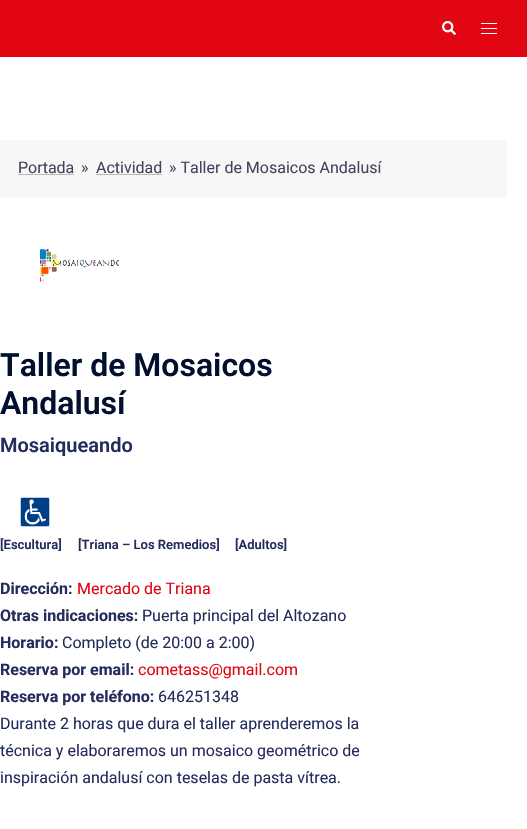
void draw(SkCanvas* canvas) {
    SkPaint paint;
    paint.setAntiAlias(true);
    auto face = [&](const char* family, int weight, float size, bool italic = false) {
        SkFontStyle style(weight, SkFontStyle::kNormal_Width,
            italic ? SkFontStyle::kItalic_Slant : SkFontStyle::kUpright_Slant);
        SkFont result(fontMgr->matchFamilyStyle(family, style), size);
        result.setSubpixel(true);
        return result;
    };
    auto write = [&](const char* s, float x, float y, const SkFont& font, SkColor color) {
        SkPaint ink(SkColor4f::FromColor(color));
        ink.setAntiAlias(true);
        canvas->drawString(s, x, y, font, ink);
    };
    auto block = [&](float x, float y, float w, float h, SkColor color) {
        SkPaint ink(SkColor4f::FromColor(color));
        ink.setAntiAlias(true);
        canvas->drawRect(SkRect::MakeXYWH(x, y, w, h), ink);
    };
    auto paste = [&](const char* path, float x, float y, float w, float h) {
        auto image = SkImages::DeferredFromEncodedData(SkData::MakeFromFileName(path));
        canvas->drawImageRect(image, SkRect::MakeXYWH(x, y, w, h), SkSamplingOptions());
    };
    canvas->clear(SK_ColorWHITE);
    block(0, 0, 527, 57, SkColorSetRGB(226, 6, 19));
    paste("pic1.png", 442, 21, 14, 14);
    block(481, 23, 16, 1, SK_ColorWHITE);
    block(481, 28, 16, 1, SK_ColorWHITE);
    block(481, 33, 16, 1, SK_ColorWHITE);
    block(0, 140, 507, 57, SkColorSetRGB(247, 247, 247));
    auto kFont1 = face("Roboto", 400, 16);
    write("Portada", 18, 173, kFont1, SkColorSetRGB(71, 66, 93));
    block(18, 174, 56, 1, SkColorSetRGB(186, 186, 186));
    write("»", 81, 173, kFont1, SkColorSetRGB(71, 66, 93));
    write("Actividad", 96, 173, kFont1, SkColorSetRGB(71, 66, 93));
    block(96, 174, 66, 1, SkColorSetRGB(186, 186, 186));
    write("» Taller de Mosaicos Andalusí", 169, 173, kFont1, SkColorSetRGB(71, 66, 93));
    paste("pic2.png", 40, 248, 79, 34);
    auto kFont2 = face("Roboto", 600, 32);
    write("Taller de Mosaicos", 0, 376, kFont2, SkColorSetRGB(0, 16, 46));
    write("Andalusí", 0, 414, kFont2, SkColorSetRGB(0, 16, 46));
    auto kFont3 = face("Roboto", 600, 20);
    write("Mosaiqueando", 0, 452, kFont3, SkColorSetRGB(37, 44, 93));
    paste("pic3.png", 20, 497, 30, 30);
    auto kFont4 = face("Roboto", 600, 13);
    write("[Escultura]", 0, 549, kFont4, SkColorSetRGB(37, 44, 93));
    write("[Triana – Los Remedios]", 78, 549, kFont4, SkColorSetRGB(37, 44, 93));
    write("[Adultos]", 235, 549, kFont4, SkColorSetRGB(37, 44, 93));
    auto kFont5 = face("Roboto", 700, 16);
    write("Dirección:", 0, 594, kFont5, SkColorSetRGB(37, 44, 93));
    write("Mercado de Triana", 77, 594, kFont1, SkColorSetRGB(226, 6, 19));
    write("Otras indicaciones:", 0, 621, kFont5, SkColorSetRGB(37, 44, 93));
    write("Puerta principal del Altozano", 142, 621, kFont1, SkColorSetRGB(37, 44, 93));
    write("Horario:", 0, 648, kFont5, SkColorSetRGB(37, 44, 93));
    write("Completo (de 20:00 a 2:00)", 62, 648, kFont1, SkColorSetRGB(37, 44, 93));
    write("Reserva por email:", 0, 675, kFont5, SkColorSetRGB(37, 44, 93));
    write("cometass@gmail.com", 138, 675, kFont1, SkColorSetRGB(226, 6, 19));
    write("Reserva por teléfono:", 0, 702, kFont5, SkColorSetRGB(37, 44, 93));
    write("646251348", 158, 702, kFont1, SkColorSetRGB(37, 44, 93));
    write("Durante 2 horas que dura el taller aprenderemos la", 0, 729, kFont1, SkColorSetRGB(37, 44, 93));
    write("técnica y elaboraremos un mosaico geométrico de", 0, 756, kFont1, SkColorSetRGB(37, 44, 93));
    write("inspiración andalusí con teselas de pasta vítrea.", 0, 783, kFont1, SkColorSetRGB(37, 44, 93));
}
